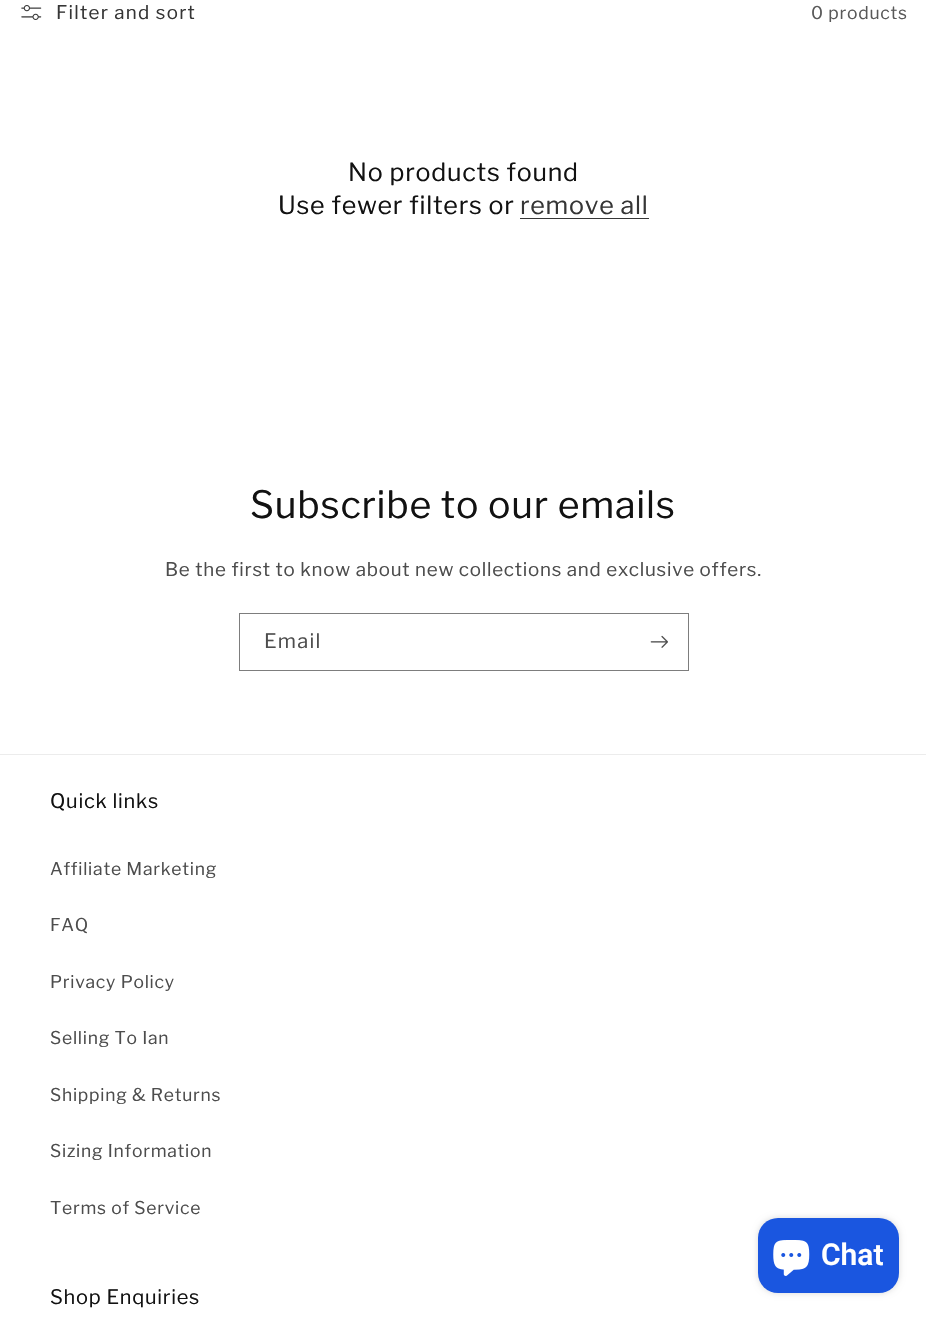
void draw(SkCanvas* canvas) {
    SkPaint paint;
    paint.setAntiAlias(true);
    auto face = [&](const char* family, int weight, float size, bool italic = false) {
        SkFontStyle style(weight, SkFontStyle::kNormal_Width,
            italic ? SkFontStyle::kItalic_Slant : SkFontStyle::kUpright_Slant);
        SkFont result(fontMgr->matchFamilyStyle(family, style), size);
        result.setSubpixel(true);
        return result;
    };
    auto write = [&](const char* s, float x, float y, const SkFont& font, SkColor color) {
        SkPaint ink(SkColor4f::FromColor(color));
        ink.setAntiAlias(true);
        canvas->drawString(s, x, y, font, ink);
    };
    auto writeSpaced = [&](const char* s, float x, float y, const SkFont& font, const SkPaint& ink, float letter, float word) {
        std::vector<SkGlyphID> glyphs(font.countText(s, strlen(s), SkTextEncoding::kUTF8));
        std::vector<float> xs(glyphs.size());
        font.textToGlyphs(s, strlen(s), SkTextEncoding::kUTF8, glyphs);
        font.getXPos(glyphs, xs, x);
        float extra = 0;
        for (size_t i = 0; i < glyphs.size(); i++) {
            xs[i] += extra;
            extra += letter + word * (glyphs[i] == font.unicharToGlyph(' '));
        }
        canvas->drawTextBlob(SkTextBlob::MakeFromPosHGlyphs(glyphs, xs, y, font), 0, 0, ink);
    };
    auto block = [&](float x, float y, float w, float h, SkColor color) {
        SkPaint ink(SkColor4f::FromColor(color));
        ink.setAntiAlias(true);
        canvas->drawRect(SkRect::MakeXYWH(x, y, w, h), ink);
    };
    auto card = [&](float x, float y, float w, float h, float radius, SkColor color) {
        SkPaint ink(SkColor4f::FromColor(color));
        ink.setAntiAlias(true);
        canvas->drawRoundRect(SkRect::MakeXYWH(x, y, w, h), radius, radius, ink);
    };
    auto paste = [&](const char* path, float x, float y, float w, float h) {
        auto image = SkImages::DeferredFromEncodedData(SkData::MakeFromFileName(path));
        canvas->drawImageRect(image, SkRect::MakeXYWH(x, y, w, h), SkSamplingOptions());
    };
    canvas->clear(SK_ColorWHITE);
    paste("pic1.png", 21, 5, 21, 15);
    auto kFont1 = face("Libre Franklin", 400, 18.75f);
    paint.setColor(SkColorSetRGB(54, 54, 54));
    writeSpaced("Filter and sort", 56, 19, kFont1, paint, 1.25f, 0);
    auto kFont2 = face("Libre Franklin", 400, 17.5f);
    paint.setColor(SkColorSetRGB(89, 89, 89));
    writeSpaced("0 products", 811, 19, kFont2, paint, 0.75f, 0);
    auto kFont3 = face("Libre Franklin", 400, 25);
    paint.setColor(SkColorSetRGB(18, 18, 18));
    writeSpaced("No products found", 348, 181, kFont3, paint, 0.75f, 0);
    writeSpaced("Use fewer filters or", 278, 214, kFont3, paint, 0.75f, 0);
    paint.setColor(SkColorSetRGB(54, 54, 54));
    writeSpaced("remove all", 520, 214, kFont3, paint, 0.75f, 0);
    block(520, 218, 129, 1, SkColorSetRGB(54, 54, 54));
    auto kFont4 = face("Libre Franklin", 400, 37.5f);
    paint.setColor(SkColorSetRGB(18, 18, 18));
    writeSpaced("Subscribe to our emails", 250, 518, kFont4, paint, 0.75f, 0);
    paint.setColor(SkColorSetRGB(77, 77, 77));
    writeSpaced("Be the first to know about new collections and exclusive offers.", 165, 576, kFont1, paint, 0.75f, 0);
    paint.setStyle(SkPaint::kStroke_Style);
    paint.setStrokeWidth(1);
    paint.setColor(SkColorSetRGB(125, 125, 125));
    canvas->drawRect(SkRect::MakeXYWH(239.5f, 613.5f, 449, 57), paint);
    auto kFont5 = face("Libre Franklin", 400, 20);
    paint.setStyle(SkPaint::kFill_Style);
    paint.setColor(SkColorSetRGB(77, 77, 77));
    writeSpaced("Email", 264, 648, kFont5, paint, 1.25f, 0);
    paste("pic2.png", 650, 635, 18, 13);
    block(0, 754, 926, 1, SkColorSetRGB(236, 236, 236));
    paint.setColor(SkColorSetRGB(18, 18, 18));
    writeSpaced("Quick links", 50, 808, kFont5, paint, 0.75f, 0);
    paint.setColor(SkColorSetRGB(77, 77, 77));
    writeSpaced("Affiliate Marketing", 50, 875, kFont2, paint, 0.75f, 0);
    writeSpaced("FAQ", 50, 931, kFont2, paint, 0.75f, 0);
    writeSpaced("Privacy Policy", 50, 988, kFont2, paint, 0.75f, 0);
    writeSpaced("Selling To Ian", 50, 1044, kFont2, paint, 0.75f, 0);
    writeSpaced("Shipping & Returns", 50, 1101, kFont2, paint, 0.75f, 0);
    writeSpaced("Sizing Information", 50, 1157, kFont2, paint, 0.75f, 0);
    writeSpaced("Terms of Service", 50, 1214, kFont2, paint, 0.75f, 0);
    paint.setColor(SkColorSetRGB(18, 18, 18));
    writeSpaced("Shop Enquiries", 50, 1304, kFont5, paint, 0.75f, 0);
    paint.setColor(SkColorSetARGB(38, 0, 0, 0));
    paint.setMaskFilter(SkMaskFilter::MakeBlur(kNormal_SkBlurStyle, 3));
    canvas->drawRoundRect(SkRect::MakeXYWH(758, 1218, 141, 75), 20, 20, paint);
    paint.setMaskFilter(nullptr);
    card(758, 1218, 141, 75, 20, SkColorSetRGB(26, 86, 224));
    paste("pic3.png", 773, 1240, 37, 36);
    auto kFont6 = face("Roboto", 600, 30);
    write("Chat", 821, 1265, kFont6, SK_ColorWHITE);
}
